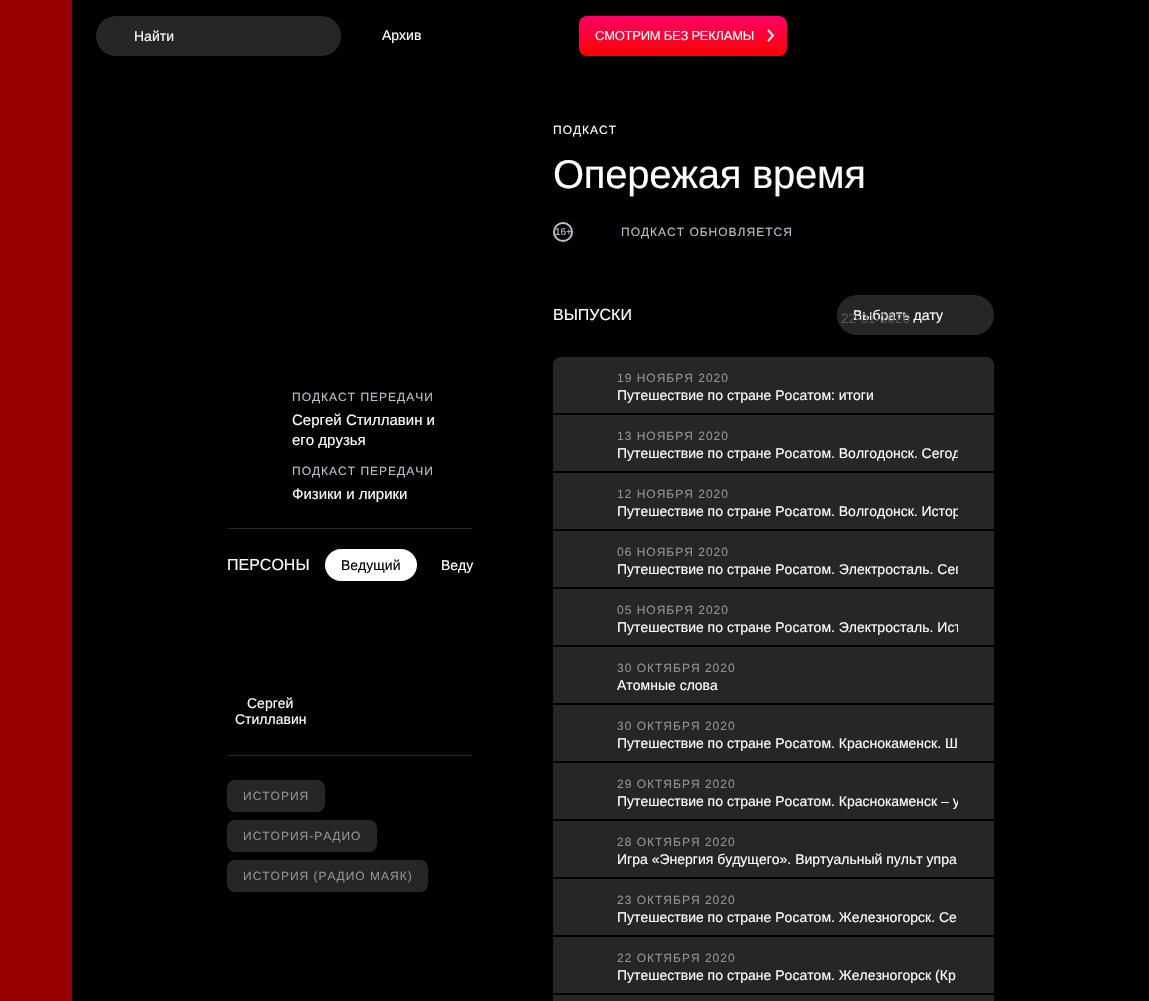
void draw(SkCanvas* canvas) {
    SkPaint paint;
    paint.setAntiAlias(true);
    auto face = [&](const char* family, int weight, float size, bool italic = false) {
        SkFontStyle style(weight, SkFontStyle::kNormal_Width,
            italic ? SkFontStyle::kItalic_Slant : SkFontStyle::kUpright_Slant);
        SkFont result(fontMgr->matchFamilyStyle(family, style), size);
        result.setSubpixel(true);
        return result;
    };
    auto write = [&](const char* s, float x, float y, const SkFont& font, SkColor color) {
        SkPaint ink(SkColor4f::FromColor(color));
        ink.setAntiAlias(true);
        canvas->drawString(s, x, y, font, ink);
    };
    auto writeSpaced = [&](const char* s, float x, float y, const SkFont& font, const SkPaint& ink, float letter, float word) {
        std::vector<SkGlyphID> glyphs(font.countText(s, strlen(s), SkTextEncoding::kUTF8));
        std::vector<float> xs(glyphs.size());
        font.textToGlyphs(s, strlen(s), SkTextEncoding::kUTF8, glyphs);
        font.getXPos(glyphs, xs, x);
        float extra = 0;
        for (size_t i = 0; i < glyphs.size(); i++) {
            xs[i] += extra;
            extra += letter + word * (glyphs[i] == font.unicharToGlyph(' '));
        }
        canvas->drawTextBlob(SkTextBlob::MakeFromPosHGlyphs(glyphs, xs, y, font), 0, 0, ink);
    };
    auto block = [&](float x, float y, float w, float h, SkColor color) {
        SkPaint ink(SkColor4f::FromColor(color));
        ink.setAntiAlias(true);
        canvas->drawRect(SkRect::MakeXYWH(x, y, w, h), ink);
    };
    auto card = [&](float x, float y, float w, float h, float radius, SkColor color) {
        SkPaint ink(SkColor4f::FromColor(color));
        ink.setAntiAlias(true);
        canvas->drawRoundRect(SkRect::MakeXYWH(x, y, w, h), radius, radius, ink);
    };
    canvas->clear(SK_ColorBLACK);
    block(0, 0, 72, 1001, SkColorSetRGB(150, 0, 0));
    card(96, 16, 245, 40, 20, SkColorSetRGB(38, 38, 38));
    auto kFont1 = face("Liberation Sans", 400, 14);
    write("Найти", 134, 41, kFont1, SK_ColorWHITE);
    write("Архив", 382, 40, kFont1, SK_ColorWHITE);
    {
        const SkColor colors[] = {SkColorSetRGB(255, 0, 100), SkColorSetRGB(255, 0, 0)};
        const float stops[] = {0, 1};
        const SkPoint ends[] = {{683, 16}, {683, 56}};
        paint.setShader(SkGradientShader::MakeLinear(ends, colors, stops, 2, SkTileMode::kClamp));
        paint.setAlpha(255);
    }
    canvas->drawRoundRect(SkRect::MakeXYWH(579, 16, 208, 40), 8, 8, paint);
    auto kFont2 = face("Liberation Sans", 400, 13);
    paint.setShader(nullptr);
    paint.setColor(SK_ColorWHITE);
    writeSpaced("СМОТРИМ БЕЗ РЕКЛАМЫ", 595, 40, kFont2, paint, -0.25f, 0);
    paint.setStyle(SkPaint::kStroke_Style);
    paint.setStrokeWidth(1.9f);
    canvas->drawPath(SkPathBuilder().moveTo(768, 30).lineTo(773, 35.5f).lineTo(768, 41).detach(), paint);
    auto kFont3 = face("Liberation Sans", 400, 12);
    paint.setStyle(SkPaint::kFill_Style);
    writeSpaced("ПОДКАСТ", 553, 134, kFont3, paint, 1, 0);
    auto kFont4 = face("Liberation Sans", 400, 40);
    writeSpaced("Опережая время", 553, 188, kFont4, paint, -0.25f, 0);
    paint.setStyle(SkPaint::kStroke_Style);
    paint.setStrokeWidth(2);
    paint.setColor(SkColorSetRGB(184, 194, 204));
    canvas->drawCircle(563, 232, 9, paint);
    auto kFont5 = face("Liberation Sans", 400, 10);
    write("16+", 555, 235, kFont5, SkColorSetRGB(184, 194, 204));
    paint.setStyle(SkPaint::kFill_Style);
    writeSpaced("ПОДКАСТ ОБНОВЛЯЕТСЯ", 621, 236, kFont3, paint, 1, 0);
    writeSpaced("ПОДКАСТ ПЕРЕДАЧИ", 292, 401, kFont3, paint, 1, 0);
    auto kFont6 = face("Liberation Sans", 400, 15);
    write("Сергей Стиллавин и", 292, 425, kFont6, SK_ColorWHITE);
    write("его друзья", 292, 445, kFont6, SK_ColorWHITE);
    writeSpaced("ПОДКАСТ ПЕРЕДАЧИ", 292, 475, kFont3, paint, 1, 0);
    write("Физики и лирики", 292, 499, kFont6, SK_ColorWHITE);
    block(227, 528, 245, 1, SkColorSetRGB(38, 38, 38));
    auto kFont7 = face("Liberation Sans", 400, 16);
    write("ВЫПУСКИ", 553, 320, kFont7, SK_ColorWHITE);
    card(837, 295, 157, 40, 20, SkColorSetRGB(38, 38, 38));
    write("Выбрать дату", 853, 320, kFont1, SK_ColorWHITE);
    auto kFont8 = face("Liberation Sans", 400, 13.5f);
    write("22-01-2026", 841, 323, kFont8, SkColorSetRGB(85, 85, 85));
    paint.setColor(SkColorSetRGB(38, 38, 38));
    canvas->drawPath(SkPathBuilder().moveTo(561, 357).lineTo(986, 357).cubicTo(990.5f, 357, 994, 360.5f, 994, 365).lineTo(994, 413).lineTo(553, 413).lineTo(553, 365).cubicTo(553, 360.5f, 556.5f, 357, 561, 357).close().detach(), paint);
    paint.setColor(SkColorSetRGB(147, 147, 147));
    writeSpaced("19 НОЯБРЯ 2020", 617, 382, kFont3, paint, 1, 0);
    write("Путешествие по стране Росатом: итоги", 617, 400, kFont1, SK_ColorWHITE);
    block(553, 415, 441, 56, SkColorSetRGB(38, 38, 38));
    writeSpaced("13 НОЯБРЯ 2020", 617, 440, kFont3, paint, 1, 0);
    canvas->save();
    canvas->clipRect(SkRect::MakeXYWH(617, 445, 341, 16));
    write("Путешествие по стране Росатом. Волгодонск. Сегод", 617, 458, kFont1, SK_ColorWHITE);
    canvas->restore();
    block(553, 473, 441, 56, SkColorSetRGB(38, 38, 38));
    writeSpaced("12 НОЯБРЯ 2020", 617, 498, kFont3, paint, 1, 0);
    canvas->save();
    canvas->clipRect(SkRect::MakeXYWH(617, 503, 341, 16));
    write("Путешествие по стране Росатом. Волгодонск. Истор", 617, 516, kFont1, SK_ColorWHITE);
    canvas->restore();
    block(553, 531, 441, 56, SkColorSetRGB(38, 38, 38));
    writeSpaced("06 НОЯБРЯ 2020", 617, 556, kFont3, paint, 1, 0);
    canvas->save();
    canvas->clipRect(SkRect::MakeXYWH(617, 561, 341, 16));
    write("Путешествие по стране Росатом. Электросталь. Сег", 617, 574, kFont1, SK_ColorWHITE);
    canvas->restore();
    block(553, 589, 441, 56, SkColorSetRGB(38, 38, 38));
    writeSpaced("05 НОЯБРЯ 2020", 617, 614, kFont3, paint, 1, 0);
    canvas->save();
    canvas->clipRect(SkRect::MakeXYWH(617, 619, 341, 16));
    write("Путешествие по стране Росатом. Электросталь. Ист", 617, 632, kFont1, SK_ColorWHITE);
    canvas->restore();
    block(553, 647, 441, 56, SkColorSetRGB(38, 38, 38));
    writeSpaced("30 ОКТЯБРЯ 2020", 617, 672, kFont3, paint, 1, 0);
    write("Атомные слова", 617, 690, kFont1, SK_ColorWHITE);
    block(553, 705, 441, 56, SkColorSetRGB(38, 38, 38));
    writeSpaced("30 ОКТЯБРЯ 2020", 617, 730, kFont3, paint, 1, 0);
    write("Путешествие по стране Росатом. Краснокаменск. Ш", 617, 748, kFont1, SK_ColorWHITE);
    block(553, 763, 441, 56, SkColorSetRGB(38, 38, 38));
    writeSpaced("29 ОКТЯБРЯ 2020", 617, 788, kFont3, paint, 1, 0);
    canvas->save();
    canvas->clipRect(SkRect::MakeXYWH(617, 793, 341, 16));
    write("Путешествие по стране Росатом. Краснокаменск – у", 617, 806, kFont1, SK_ColorWHITE);
    canvas->restore();
    block(553, 821, 441, 56, SkColorSetRGB(38, 38, 38));
    writeSpaced("28 ОКТЯБРЯ 2020", 617, 846, kFont3, paint, 1, 0);
    write("Игра «Энергия будущего». Виртуальный пульт упра", 617, 864, kFont1, SK_ColorWHITE);
    block(553, 879, 441, 56, SkColorSetRGB(38, 38, 38));
    writeSpaced("23 ОКТЯБРЯ 2020", 617, 904, kFont3, paint, 1, 0);
    write("Путешествие по стране Росатом. Железногорск. Се", 617, 922, kFont1, SK_ColorWHITE);
    block(553, 937, 441, 56, SkColorSetRGB(38, 38, 38));
    writeSpaced("22 ОКТЯБРЯ 2020", 617, 962, kFont3, paint, 1, 0);
    write("Путешествие по стране Росатом. Железногорск (Кр", 617, 980, kFont1, SK_ColorWHITE);
    block(553, 995, 441, 6, SkColorSetRGB(38, 38, 38));
    write("ПЕРСОНЫ", 227, 570, kFont7, SK_ColorWHITE);
    card(325, 549, 92, 32, 16, SK_ColorWHITE);
    write("Ведущий", 341, 570, kFont1, SK_ColorBLACK);
    write("Веду", 441, 570, kFont1, SK_ColorWHITE);
    write("Сергей", 247, 708, kFont1, SK_ColorWHITE);
    write("Стиллавин", 235, 724, kFont1, SK_ColorWHITE);
    block(227, 755, 245, 1, SkColorSetRGB(38, 38, 38));
    card(227, 780, 98, 32, 8, SkColorSetRGB(38, 38, 38));
    writeSpaced("ИСТОРИЯ", 243, 800, kFont3, paint, 1, 0);
    card(227, 820, 150, 32, 8, SkColorSetRGB(38, 38, 38));
    writeSpaced("ИСТОРИЯ-РАДИО", 243, 840, kFont3, paint, 1, 0);
    card(227, 860, 201, 32, 8, SkColorSetRGB(38, 38, 38));
    writeSpaced("ИСТОРИЯ (РАДИО МАЯК)", 243, 880, kFont3, paint, 1, 0);
}
